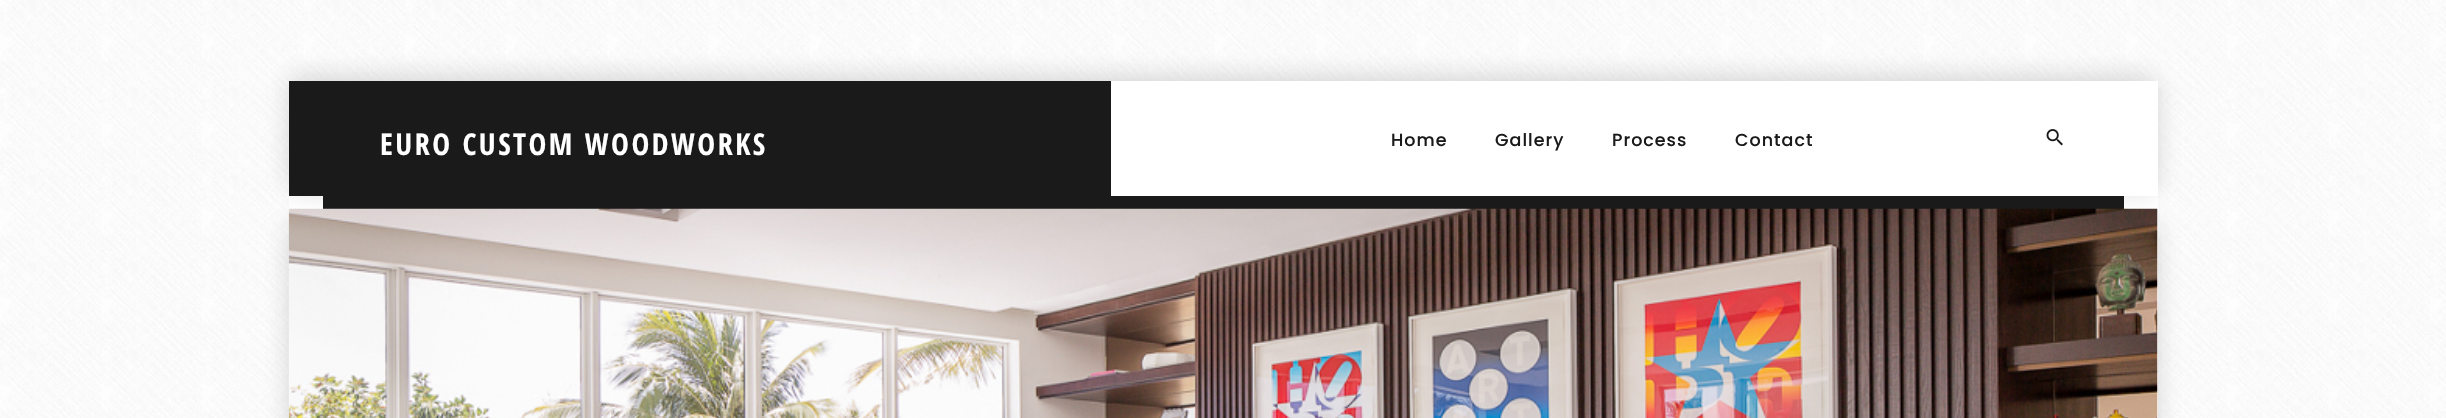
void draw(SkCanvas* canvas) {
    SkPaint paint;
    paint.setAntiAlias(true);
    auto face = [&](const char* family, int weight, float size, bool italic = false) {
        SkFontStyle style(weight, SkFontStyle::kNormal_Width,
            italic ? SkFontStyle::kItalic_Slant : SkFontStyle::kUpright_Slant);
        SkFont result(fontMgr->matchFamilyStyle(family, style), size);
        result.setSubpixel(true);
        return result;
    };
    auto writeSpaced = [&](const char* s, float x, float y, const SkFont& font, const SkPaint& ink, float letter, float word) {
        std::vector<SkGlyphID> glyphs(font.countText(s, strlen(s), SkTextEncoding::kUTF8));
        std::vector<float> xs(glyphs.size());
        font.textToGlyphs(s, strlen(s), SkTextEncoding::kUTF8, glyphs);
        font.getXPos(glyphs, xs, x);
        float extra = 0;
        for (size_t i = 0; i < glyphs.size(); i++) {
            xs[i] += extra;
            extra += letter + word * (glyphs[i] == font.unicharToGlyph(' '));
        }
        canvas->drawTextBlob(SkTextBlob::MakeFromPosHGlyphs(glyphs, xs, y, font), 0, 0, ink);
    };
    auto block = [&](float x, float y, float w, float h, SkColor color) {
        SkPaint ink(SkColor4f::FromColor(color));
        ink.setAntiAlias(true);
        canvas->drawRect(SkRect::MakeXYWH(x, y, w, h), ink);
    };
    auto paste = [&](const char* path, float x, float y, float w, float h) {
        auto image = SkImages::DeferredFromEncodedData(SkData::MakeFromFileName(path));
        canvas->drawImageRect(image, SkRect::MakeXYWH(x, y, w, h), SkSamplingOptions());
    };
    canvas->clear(SK_ColorWHITE);
    paste("pic1.png", 0, 0, 2446, 418);
    block(1111, 81, 1047, 115, SK_ColorWHITE);
    paint.setColor(SkColorSetARGB(51, 26, 26, 26));
    paint.setMaskFilter(SkMaskFilter::MakeBlur(kNormal_SkBlurStyle, 13));
    canvas->drawRect(SkRect::MakeXYWH(291, 224, 1864, 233), paint);
    paint.setMaskFilter(nullptr);
    block(289, 196, 1869, 222, SK_ColorWHITE);
    canvas->save();
    canvas->clipPath(SkPathBuilder(SkPathFillType::kEvenOdd).moveTo(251, 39).lineTo(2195, 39).lineTo(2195, 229).lineTo(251, 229).close().moveTo(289, 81).lineTo(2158, 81).lineTo(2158, 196).lineTo(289, 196).close().detach(), true);
    paint.setMaskFilter(SkMaskFilter::MakeBlur(kNormal_SkBlurStyle, 13));
    canvas->drawRect(SkRect::MakeXYWH(291, 79, 1864, 110), paint);
    paint.setMaskFilter(nullptr);
    canvas->restore();
    block(289, 81, 822, 115, SkColorSetRGB(26, 26, 26));
    auto kFont1 = face("Open Sans Condensed", 700, 30);
    paint.setColor(SK_ColorWHITE);
    writeSpaced("EURO CUSTOM WOODWORKS", 380, 155, kFont1, paint, 2.5f, 0);
    auto kFont2 = face("Poppins", 500, 17.5f);
    paint.setColor(SkColorSetRGB(26, 26, 26));
    writeSpaced("Home", 1391, 146, kFont2, paint, 1, 0);
    writeSpaced("Gallery", 1495, 146, kFont2, paint, 1, 0);
    writeSpaced("Process", 1612, 146, kFont2, paint, 1, 0);
    writeSpaced("Contact", 1735, 146, kFont2, paint, 1, 0);
    paste("pic2.png", 2046, 129, 17, 17);
    block(323, 196, 1801, 13, SkColorSetRGB(26, 26, 26));
    paste("pic3.png", 288, 208, 1870, 210);
}
